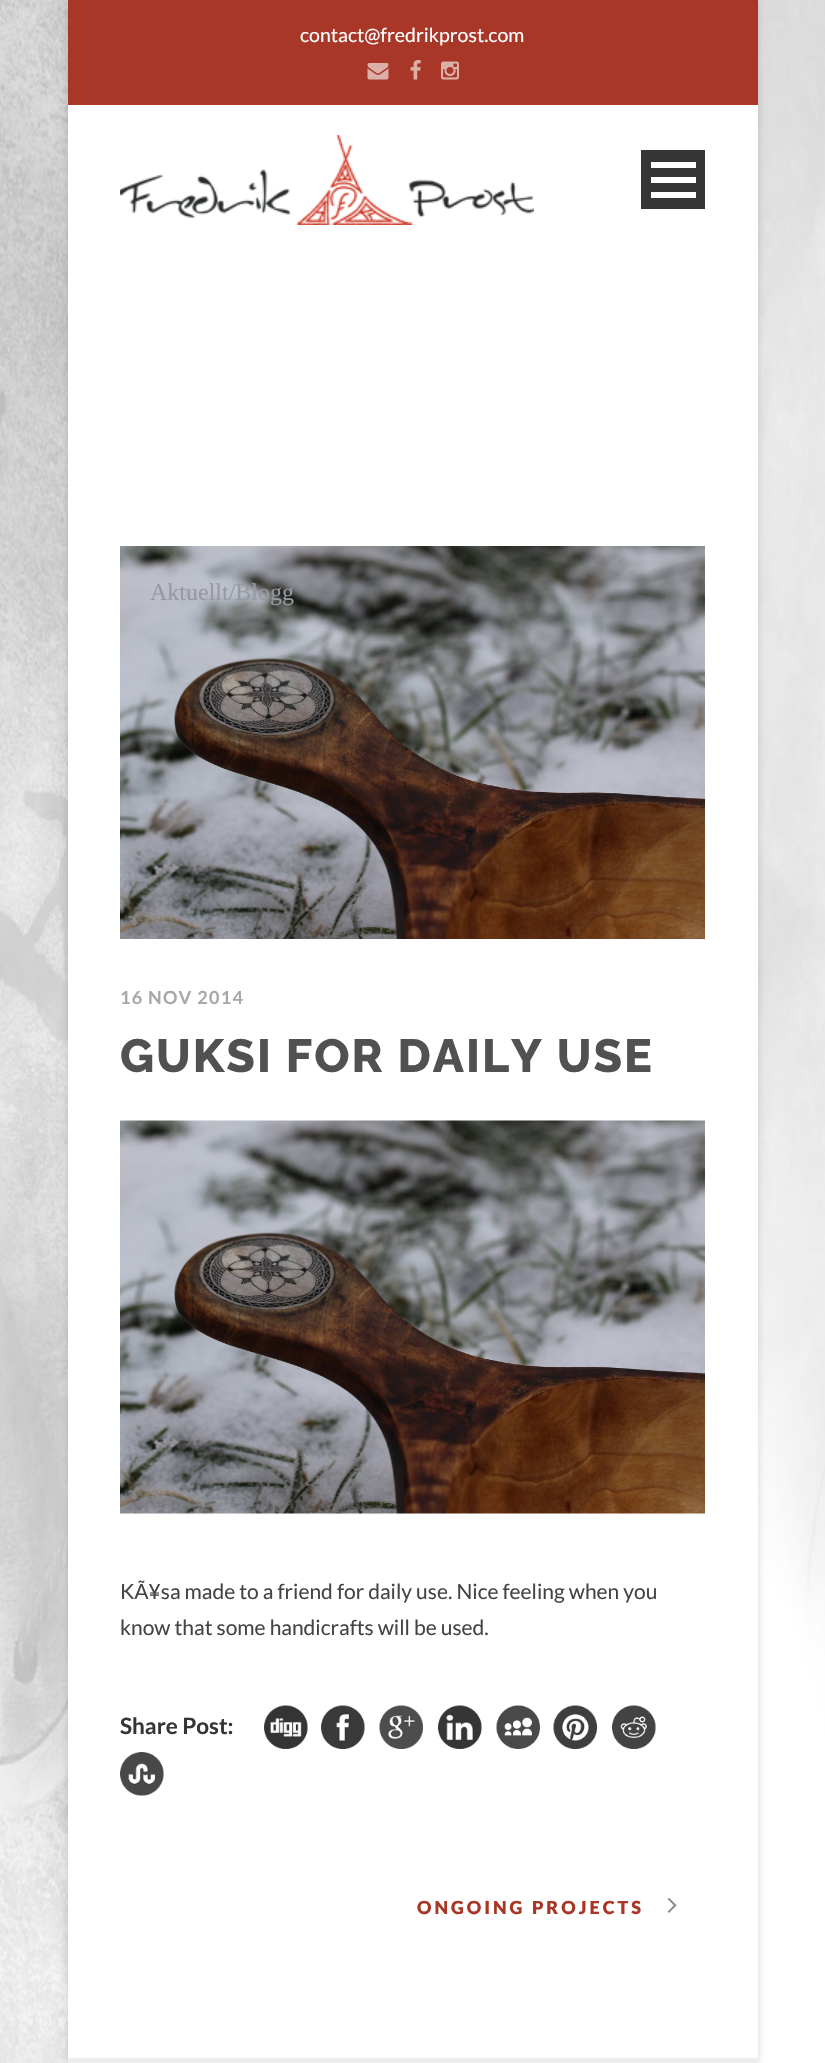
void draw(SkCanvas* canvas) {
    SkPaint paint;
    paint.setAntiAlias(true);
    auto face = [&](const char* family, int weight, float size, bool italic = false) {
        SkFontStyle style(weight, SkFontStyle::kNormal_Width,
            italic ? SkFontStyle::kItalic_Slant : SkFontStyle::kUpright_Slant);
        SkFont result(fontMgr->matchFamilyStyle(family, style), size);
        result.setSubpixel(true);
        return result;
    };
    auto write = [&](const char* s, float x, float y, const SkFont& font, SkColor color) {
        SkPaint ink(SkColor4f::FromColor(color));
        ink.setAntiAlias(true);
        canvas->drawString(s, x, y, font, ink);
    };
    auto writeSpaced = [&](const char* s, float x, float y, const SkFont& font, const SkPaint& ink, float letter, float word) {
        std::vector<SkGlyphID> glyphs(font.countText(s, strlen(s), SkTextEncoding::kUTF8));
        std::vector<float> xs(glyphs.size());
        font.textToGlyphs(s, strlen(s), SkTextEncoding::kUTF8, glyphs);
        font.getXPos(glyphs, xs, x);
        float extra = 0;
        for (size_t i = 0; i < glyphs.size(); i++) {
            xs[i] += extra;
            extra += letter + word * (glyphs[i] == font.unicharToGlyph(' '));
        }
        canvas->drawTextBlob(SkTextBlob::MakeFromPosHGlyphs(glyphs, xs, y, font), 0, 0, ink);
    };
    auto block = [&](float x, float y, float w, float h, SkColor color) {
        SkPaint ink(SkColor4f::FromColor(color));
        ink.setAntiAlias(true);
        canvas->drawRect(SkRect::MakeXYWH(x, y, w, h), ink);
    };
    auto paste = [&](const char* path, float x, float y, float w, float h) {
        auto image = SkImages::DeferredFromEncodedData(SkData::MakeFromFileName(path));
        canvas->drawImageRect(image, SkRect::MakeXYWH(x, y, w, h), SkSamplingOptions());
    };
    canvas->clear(SK_ColorWHITE);
    paste("pic1.png", 0, 0, 825, 2063);
    paint.setColor(SkColorSetARGB(38, 0, 0, 0));
    paint.setMaskFilter(SkMaskFilter::MakeBlur(kNormal_SkBlurStyle, 4));
    canvas->drawRect(SkRect::MakeXYWH(68, 2, 690, 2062), paint);
    paint.setMaskFilter(nullptr);
    block(68, 105, 690, 1953, SK_ColorWHITE);
    block(68, 0, 690, 105, SkColorSetRGB(169, 55, 40));
    auto kFont1 = face("Lato", 400, 19.5f);
    write("contact@fredrikprost.com", 300, 42, kFont1, SK_ColorWHITE);
    paste("pic2.png", 367, 63, 22, 17);
    paste("pic3.png", 410, 60, 11, 20);
    paste("pic4.png", 441, 61, 18, 19);
    paste("pic5.png", 120, 135, 414, 90);
    block(641, 150, 64, 59, SkColorSetRGB(53, 53, 53));
    block(651, 192, 45, 6, SK_ColorWHITE);
    block(651, 177, 45, 6, SK_ColorWHITE);
    block(651, 162, 45, 6, SK_ColorWHITE);
    paste("pic6.png", 120, 546, 585, 393);
    auto kFont2 = face("Liberation Serif", 400, 24);
    write("Aktuellt/Blogg", 150, 600, kFont2, SkColorSetRGB(150, 154, 160));
    auto kFont3 = face("Lato", 700, 18);
    paint.setColor(SkColorSetRGB(168, 168, 168));
    writeSpaced("16 NOV 2014", 120, 1004, kFont3, paint, 1.25f, 0);
    auto kFont4 = face("Raleway", 800, 46.5f);
    paint.setColor(SkColorSetRGB(81, 81, 81));
    writeSpaced("GUKSI FOR DAILY USE", 120, 1072, kFont4, paint, 2, 0);
    paste("pic7.png", 120, 1120, 585, 394);
    auto kFont5 = face("Lato", 400, 21);
    write("KÃ¥sa made to a friend for daily use. Nice feeling when you", 120, 1599, kFont5, SkColorSetRGB(68, 68, 68));
    write("know that some handicrafts will be used.", 120, 1635, kFont5, SkColorSetRGB(68, 68, 68));
    auto kFont6 = face("Lato", 700, 22.5f);
    write("Share Post:", 120, 1734, kFont6, SkColorSetRGB(53, 53, 53));
    paste("pic8.png", 264, 1705, 44, 44);
    paste("pic9.png", 321, 1705, 44, 44);
    paste("pic10.png", 379, 1705, 44, 44);
    paste("pic11.png", 438, 1705, 44, 44);
    paste("pic12.png", 496, 1705, 44, 44);
    paste("pic13.png", 553, 1705, 44, 44);
    paste("pic14.png", 612, 1705, 44, 44);
    paste("pic15.png", 120, 1752, 44, 44);
    auto kFont7 = face("Lato", 900, 18);
    paint.setColor(SkColorSetRGB(169, 55, 40));
    writeSpaced("ONGOING PROJECTS", 417, 1914, kFont7, paint, 3, 0);
    paste("pic16.png", 667, 1897, 10, 16);
    block(68, 2058, 690, 5, SkColorSetRGB(238, 238, 238));
}
